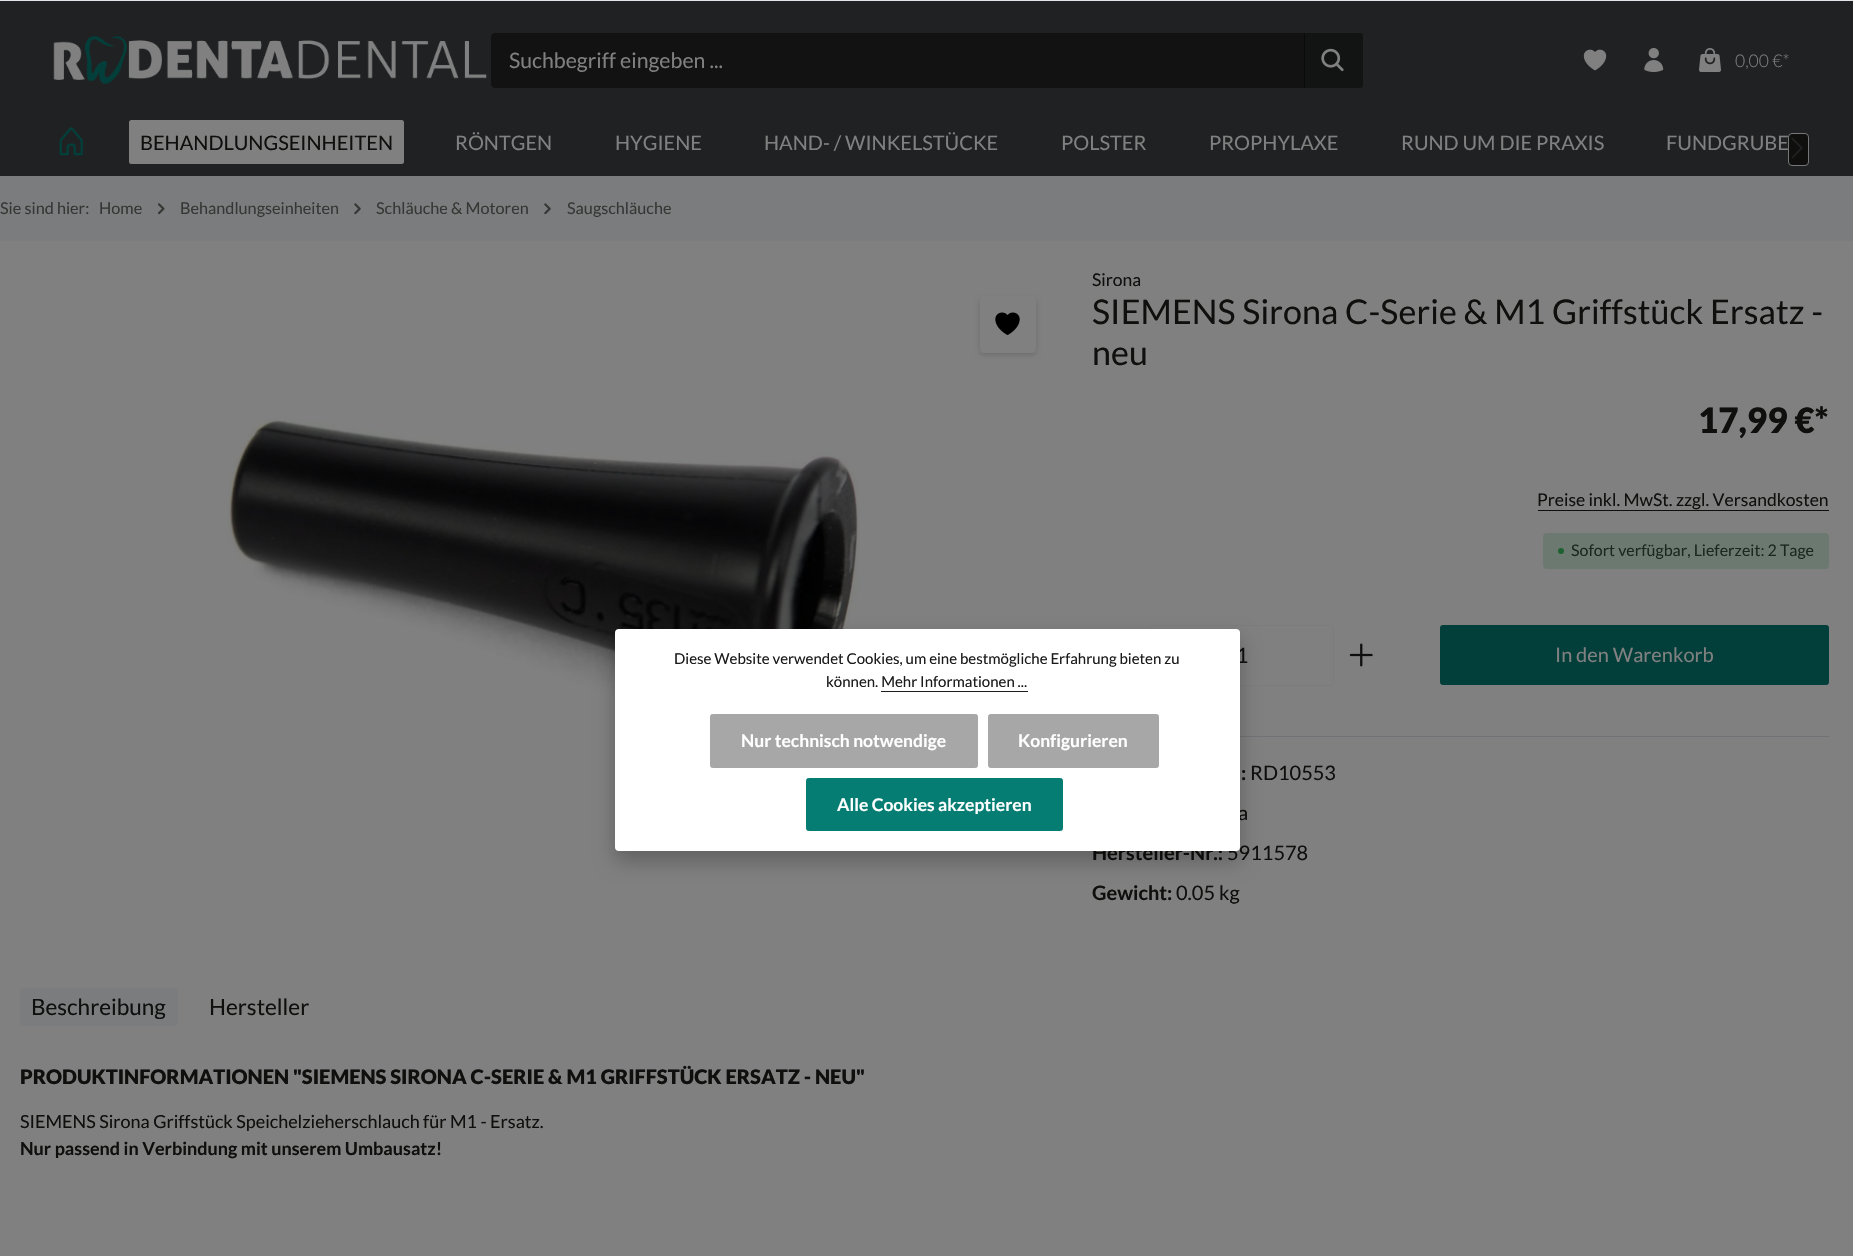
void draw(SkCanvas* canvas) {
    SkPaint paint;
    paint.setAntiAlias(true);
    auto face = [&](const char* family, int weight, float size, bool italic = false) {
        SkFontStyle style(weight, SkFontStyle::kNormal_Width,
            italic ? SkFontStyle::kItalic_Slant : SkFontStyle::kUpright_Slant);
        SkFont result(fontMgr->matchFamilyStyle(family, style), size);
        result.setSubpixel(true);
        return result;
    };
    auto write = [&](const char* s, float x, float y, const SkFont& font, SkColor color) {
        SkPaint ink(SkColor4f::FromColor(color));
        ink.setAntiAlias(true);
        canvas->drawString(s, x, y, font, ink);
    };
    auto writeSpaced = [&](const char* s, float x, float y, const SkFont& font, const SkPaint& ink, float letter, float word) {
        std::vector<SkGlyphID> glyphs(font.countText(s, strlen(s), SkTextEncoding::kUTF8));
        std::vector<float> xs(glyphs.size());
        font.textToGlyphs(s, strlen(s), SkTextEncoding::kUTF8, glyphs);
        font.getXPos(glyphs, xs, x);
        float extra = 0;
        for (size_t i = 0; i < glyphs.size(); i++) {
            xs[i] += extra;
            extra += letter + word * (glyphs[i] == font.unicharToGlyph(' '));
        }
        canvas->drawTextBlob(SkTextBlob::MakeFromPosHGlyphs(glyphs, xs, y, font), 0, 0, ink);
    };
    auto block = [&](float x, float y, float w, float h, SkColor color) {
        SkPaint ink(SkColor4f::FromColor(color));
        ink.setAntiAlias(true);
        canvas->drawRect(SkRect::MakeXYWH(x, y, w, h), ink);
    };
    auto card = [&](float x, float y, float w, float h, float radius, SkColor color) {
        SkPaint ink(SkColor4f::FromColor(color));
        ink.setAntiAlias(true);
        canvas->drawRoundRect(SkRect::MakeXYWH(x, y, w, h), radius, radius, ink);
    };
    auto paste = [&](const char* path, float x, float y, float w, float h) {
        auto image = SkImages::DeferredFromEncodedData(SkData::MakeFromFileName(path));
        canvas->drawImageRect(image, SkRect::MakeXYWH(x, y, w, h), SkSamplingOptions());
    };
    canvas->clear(SkColorSetRGB(123, 124, 125));
    block(0, 1, 1853, 175, SkColorSetRGB(32, 33, 34));
    paste("pic1.png", 53, 36, 434, 48);
    paint.setColor(SkColorSetRGB(18, 18, 19));
    canvas->drawPath(SkPathBuilder().moveTo(495, 33).lineTo(1305, 33).lineTo(1305, 88).lineTo(495, 88).cubicTo(493, 88, 491, 86, 491, 84).lineTo(491, 37).cubicTo(491, 35, 493, 33, 495, 33).close().detach(), paint);
    auto kFont1 = face("Lato", 400, 21.25f);
    write("Suchbegriff eingeben ...", 509, 68, kFont1, SkColorSetRGB(128, 128, 128));
    paint.setColor(SkColorSetARGB(115, 0, 0, 0));
    canvas->drawPath(SkPathBuilder().moveTo(1304, 33).lineTo(1360.5f, 33).cubicTo(1362, 33, 1363, 34, 1363, 35.5f).lineTo(1363, 85.5f).cubicTo(1363, 87, 1362, 88, 1360.5f, 88).lineTo(1304, 88).close().detach(), paint);
    paste("pic2.png", 1321, 48, 23, 24);
    paste("pic3.png", 1583, 49, 24, 22);
    paste("pic4.png", 1644, 48, 20, 24);
    paste("pic5.png", 1699, 48, 22, 24);
    auto kFont2 = face("Lato", 300, 17.5f);
    write("0,00 €*", 1735, 67, kFont2, SkColorSetRGB(128, 128, 128));
    paste("pic6.png", 59, 127, 24, 29);
    card(129, 120, 275, 44, 2.5f, SkColorSetRGB(128, 128, 128));
    auto kFont3 = face("Lato", 400, 20);
    write("BEHANDLUNGSEINHEITEN", 140, 150, kFont3, SkColorSetRGB(15, 15, 14));
    write("RÖNTGEN", 455, 150, kFont3, SkColorSetRGB(128, 128, 128));
    write("HYGIENE", 615, 150, kFont3, SkColorSetRGB(128, 128, 128));
    write("HAND- / WINKELSTÜCKE", 764, 150, kFont3, SkColorSetRGB(128, 128, 128));
    write("POLSTER", 1061, 150, kFont3, SkColorSetRGB(128, 128, 128));
    write("PROPHYLAXE", 1209, 150, kFont3, SkColorSetRGB(128, 128, 128));
    write("RUND UM DIE PRAXIS", 1401, 150, kFont3, SkColorSetRGB(128, 128, 128));
    write("FUNDGRUBE", 1666, 150, kFont3, SkColorSetRGB(128, 128, 128));
    paint.setColor(SkColorSetRGB(15, 15, 14));
    canvas->drawRoundRect(SkRect::MakeXYWH(1788.5f, 133.5f, 20, 32), 3.5f, 3.5f, paint);
    paint.setStyle(SkPaint::kStroke_Style);
    paint.setStrokeWidth(1);
    paint.setColor(SkColorSetRGB(118, 118, 120));
    canvas->drawRoundRect(SkRect::MakeXYWH(1788.5f, 133.5f, 20, 32), 3.5f, 3.5f, paint);
    paste("pic7.png", 1791, 138, 12, 21);
    auto kFont4 = face("Lato", 400, 16.25f);
    write("Sie sind hier:", 0, 214, kFont4, SkColorSetRGB(54, 54, 52));
    write("Home", 99, 214, kFont4, SkColorSetRGB(54, 54, 52));
    paste("pic8.png", 158, 203, 7, 12);
    write("Behandlungseinheiten", 180, 214, kFont4, SkColorSetRGB(54, 54, 52));
    paste("pic9.png", 354, 203, 7, 12);
    write("Schläuche & Motoren", 376, 214, kFont4, SkColorSetRGB(54, 54, 52));
    paste("pic9.png", 544, 203, 7, 12);
    write("Saugschläuche", 567, 214, kFont4, SkColorSetRGB(54, 54, 52));
    block(0, 241, 1853, 1015, SkColorSetRGB(128, 128, 128));
    canvas->save();
    canvas->clipPath(SkPathBuilder(SkPathFillType::kEvenOdd).moveTo(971, 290).lineTo(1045, 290).lineTo(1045, 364).lineTo(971, 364).close().moveTo(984, 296).lineTo(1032, 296).cubicTo(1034, 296, 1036, 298, 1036, 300).lineTo(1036, 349).cubicTo(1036, 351, 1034, 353, 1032, 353).lineTo(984, 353).cubicTo(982, 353, 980, 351, 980, 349).lineTo(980, 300).cubicTo(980, 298, 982, 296, 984, 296).close().detach(), true);
    paint.setStyle(SkPaint::kFill_Style);
    paint.setColor(SkColorSetARGB(38, 0, 0, 0));
    paint.setMaskFilter(SkMaskFilter::MakeBlur(kNormal_SkBlurStyle, 2.5f));
    canvas->drawRoundRect(SkRect::MakeXYWH(980, 299, 56, 56), 4, 4, paint);
    paint.setMaskFilter(nullptr);
    canvas->restore();
    paste("pic10.png", 995, 312, 25, 23);
    paste("pic11.png", 227, 420, 633, 312);
    auto kFont5 = face("Lato", 400, 17.5f);
    write("Sirona", 1092, 286, kFont5, SkColorSetRGB(15, 15, 14));
    auto kFont6 = face("Lato", 400, 34);
    paint.setColor(SkColorSetRGB(15, 15, 14));
    writeSpaced("SIEMENS Sirona C-Serie & M1 Griffstück Ersatz -", 1092, 324, kFont6, paint, 0.1f, 0);
    writeSpaced("neu", 1092, 365, kFont6, paint, 0.1f, 0);
    auto kFont7 = face("Lato", 900, 35);
    write("17,99 €*", 1698, 433, kFont7, SkColorSetRGB(15, 15, 14));
    write("Preise inkl. MwSt. zzgl. Versandkosten", 1537, 506, kFont5, SkColorSetRGB(15, 15, 14));
    block(1538, 510, 291, 1, SkColorSetRGB(15, 15, 14));
    auto kFont8 = face("Lato", 400, 16);
    write("Sofort verfügbar, Lieferzeit: 2 Tage", 1571, 556, kFont8, SkColorSetRGB(26, 26, 26));
    card(1543, 533, 286, 36, 4, SkColorSetARGB(51, 30, 97, 49));
    paint.setColor(SkColorSetRGB(30, 97, 49));
    canvas->drawCircle(1561, 551, 3, paint);
    paint.setStyle(SkPaint::kStroke_Style);
    paint.setColor(SkColorSetRGB(123, 124, 125));
    canvas->drawRoundRect(SkRect::MakeXYWH(1149.5f, 625.5f, 184, 60), 3.5f, 3.5f, paint);
    write("1", 1236, 663, kFont1, SkColorSetRGB(15, 15, 14));
    paste("pic12.png", 1349, 643, 24, 24);
    paint.setStyle(SkPaint::kFill_Style);
    paint.setColor(SkColorSetRGB(3, 63, 58));
    canvas->drawRoundRect(SkRect::MakeXYWH(1440.5f, 625.5f, 388, 59), 2, 2, paint);
    paint.setStyle(SkPaint::kStroke_Style);
    canvas->drawRoundRect(SkRect::MakeXYWH(1440.5f, 625.5f, 388, 59), 2, 2, paint);
    write("In den Warenkorb", 1555, 662, kFont3, SkColorSetRGB(128, 128, 128));
    block(1240, 736, 589, 1, SkColorSetRGB(113, 114, 117));
    auto kFont9 = face("Lato", 700, 20);
    write(":", 1241, 780, kFont9, SkColorSetRGB(15, 15, 14));
    write("RD10553", 1250, 780, kFont3, SkColorSetRGB(15, 15, 14));
    write("a", 1238, 820, kFont3, SkColorSetRGB(15, 15, 14));
    write("Hersteller-Nr.:", 1092, 860, kFont9, SkColorSetRGB(15, 15, 14));
    write("5911578", 1227, 860, kFont3, SkColorSetRGB(15, 15, 14));
    write("Gewicht:", 1092, 900, kFont9, SkColorSetRGB(15, 15, 14));
    write("0.05 kg", 1176, 900, kFont3, SkColorSetRGB(15, 15, 14));
    card(20, 988, 158, 38, 4, SkColorSetRGB(123, 124, 125));
    auto kFont10 = face("Lato", 400, 22.5f);
    write("Beschreibung", 31, 1015, kFont10, SkColorSetRGB(15, 15, 14));
    write("Hersteller", 209, 1015, kFont10, SkColorSetRGB(15, 15, 14));
    auto kFont11 = face("Lato", 900, 20);
    write("PRODUKTINFORMATIONEN \"SIEMENS SIRONA C-SERIE & M1 GRIFFSTÜCK ERSATZ - NEU\"", 20, 1084, kFont11, SkColorSetRGB(15, 15, 14));
    auto kFont12 = face("Lato", 400, 18);
    write("SIEMENS Sirona Griffstück Speichelzieherschlauch für M1 - Ersatz.", 20, 1128, kFont12, SkColorSetRGB(15, 15, 14));
    auto kFont13 = face("Lato", 700, 18);
    write("Nur passend in Verbindung mit unserem Umbausatz!", 20, 1155, kFont13, SkColorSetRGB(15, 15, 14));
    block(0, 0, 1853, 1, SkColorSetRGB(226, 228, 233));
    paint.setStyle(SkPaint::kFill_Style);
    paint.setColor(SkColorSetARGB(64, 0, 0, 0));
    paint.setMaskFilter(SkMaskFilter::MakeBlur(kNormal_SkBlurStyle, 10));
    canvas->drawRoundRect(SkRect::MakeXYWH(615, 639, 625, 222), 4, 4, paint);
    paint.setMaskFilter(nullptr);
    card(615, 629, 625, 222, 4, SK_ColorWHITE);
    auto kFont14 = face("Lato", 400, 15);
    write("Diese Website verwendet Cookies, um eine bestmögliche Erfahrung bieten zu", 674, 664, kFont14, SkColorSetRGB(26, 26, 26));
    write("können. Mehr Informationen ...", 826, 687, kFont14, SkColorSetRGB(26, 26, 26));
    block(881, 691, 147, 1, SkColorSetRGB(29, 29, 28));
    paint.setColor(SkColorSetRGB(167, 167, 167));
    canvas->drawRoundRect(SkRect::MakeXYWH(710.5f, 714.5f, 267, 53), 2, 2, paint);
    paint.setStyle(SkPaint::kStroke_Style);
    canvas->drawRoundRect(SkRect::MakeXYWH(710.5f, 714.5f, 267, 53), 2, 2, paint);
    auto kFont15 = face("Lato", 700, 17.5f);
    write("Nur technisch notwendige", 741, 747, kFont15, SK_ColorWHITE);
    paint.setStyle(SkPaint::kFill_Style);
    canvas->drawRoundRect(SkRect::MakeXYWH(988.5f, 714.5f, 170, 53), 2, 2, paint);
    paint.setStyle(SkPaint::kStroke_Style);
    canvas->drawRoundRect(SkRect::MakeXYWH(988.5f, 714.5f, 170, 53), 2, 2, paint);
    write("Konfigurieren", 1018, 747, kFont15, SK_ColorWHITE);
    paint.setStyle(SkPaint::kFill_Style);
    paint.setColor(SkColorSetRGB(5, 125, 115));
    canvas->drawRoundRect(SkRect::MakeXYWH(806.5f, 778.5f, 256, 52), 2, 2, paint);
    paint.setStyle(SkPaint::kStroke_Style);
    canvas->drawRoundRect(SkRect::MakeXYWH(806.5f, 778.5f, 256, 52), 2, 2, paint);
    write("Alle Cookies akzeptieren", 837, 811, kFont15, SK_ColorWHITE);
}
